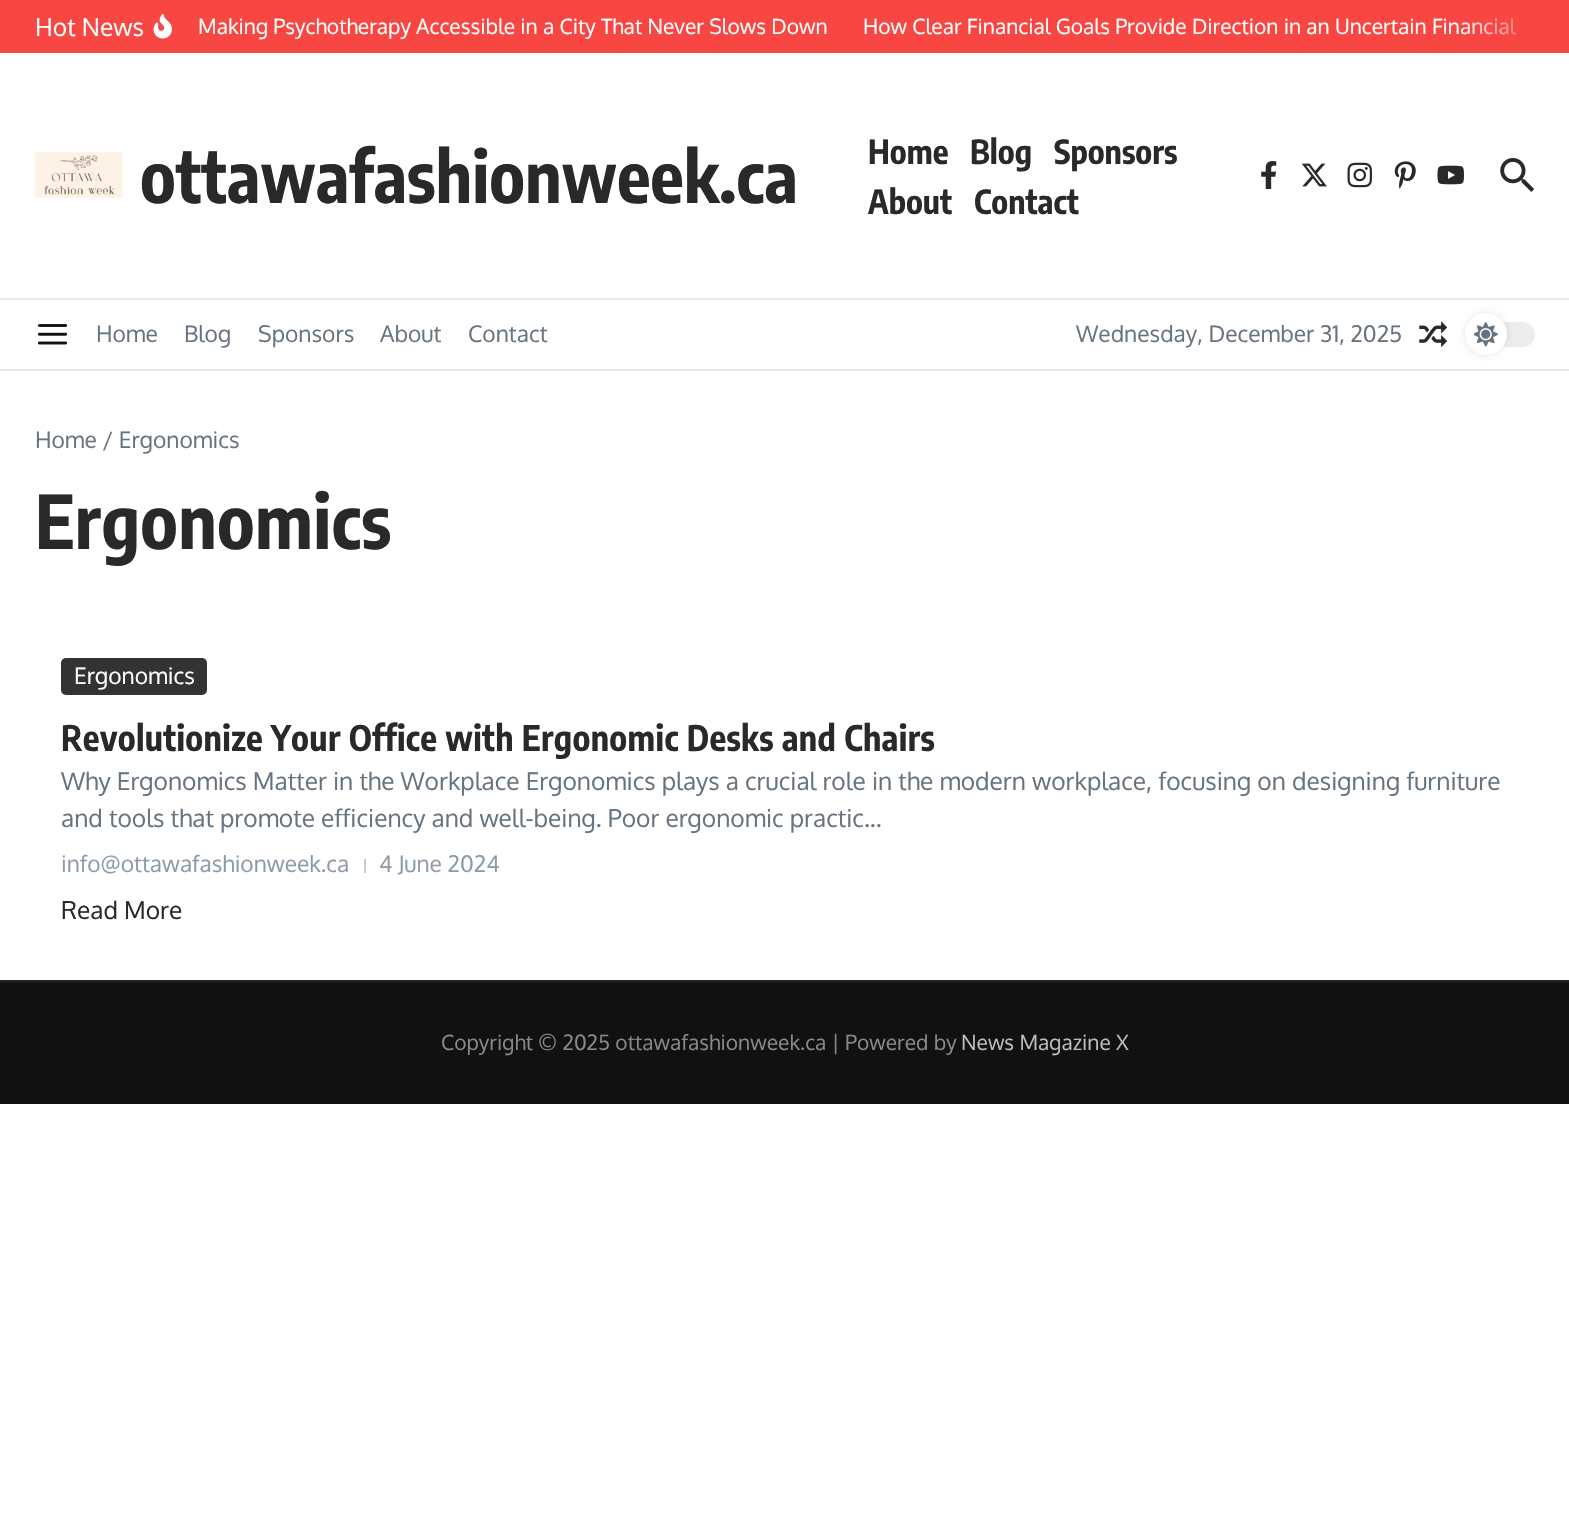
void draw(SkCanvas* canvas) {
    SkPaint paint;
    paint.setAntiAlias(true);
    auto face = [&](const char* family, int weight, float size, bool italic = false) {
        SkFontStyle style(weight, SkFontStyle::kNormal_Width,
            italic ? SkFontStyle::kItalic_Slant : SkFontStyle::kUpright_Slant);
        SkFont result(fontMgr->matchFamilyStyle(family, style), size);
        result.setSubpixel(true);
        return result;
    };
    auto write = [&](const char* s, float x, float y, const SkFont& font, SkColor color) {
        SkPaint ink(SkColor4f::FromColor(color));
        ink.setAntiAlias(true);
        canvas->drawString(s, x, y, font, ink);
    };
    auto writeSpaced = [&](const char* s, float x, float y, const SkFont& font, const SkPaint& ink, float letter, float word) {
        std::vector<SkGlyphID> glyphs(font.countText(s, strlen(s), SkTextEncoding::kUTF8));
        std::vector<float> xs(glyphs.size());
        font.textToGlyphs(s, strlen(s), SkTextEncoding::kUTF8, glyphs);
        font.getXPos(glyphs, xs, x);
        float extra = 0;
        for (size_t i = 0; i < glyphs.size(); i++) {
            xs[i] += extra;
            extra += letter + word * (glyphs[i] == font.unicharToGlyph(' '));
        }
        canvas->drawTextBlob(SkTextBlob::MakeFromPosHGlyphs(glyphs, xs, y, font), 0, 0, ink);
    };
    auto block = [&](float x, float y, float w, float h, SkColor color) {
        SkPaint ink(SkColor4f::FromColor(color));
        ink.setAntiAlias(true);
        canvas->drawRect(SkRect::MakeXYWH(x, y, w, h), ink);
    };
    auto card = [&](float x, float y, float w, float h, float radius, SkColor color) {
        SkPaint ink(SkColor4f::FromColor(color));
        ink.setAntiAlias(true);
        canvas->drawRoundRect(SkRect::MakeXYWH(x, y, w, h), radius, radius, ink);
    };
    auto paste = [&](const char* path, float x, float y, float w, float h) {
        auto image = SkImages::DeferredFromEncodedData(SkData::MakeFromFileName(path));
        canvas->drawImageRect(image, SkRect::MakeXYWH(x, y, w, h), SkSamplingOptions());
    };
    canvas->clear(SK_ColorWHITE);
    block(0, 0, 1569, 53, SkColorSetRGB(248, 70, 67));
    auto kFont1 = face("Oxygen", 400, 24.5f);
    write("Hot News", 35, 36, kFont1, SK_ColorWHITE);
    paste("pic1.png", 153, 14, 19, 25);
    auto kFont2 = face("Oxygen", 400, 21);
    write("Making Psychotherapy Accessible in a City That Never Slows Down", 198, 34, kFont2, SK_ColorWHITE);
    write("How Clear Financial Goals Provide Direction in an Uncertain Financial", 863, 34, kFont2, SK_ColorWHITE);
    {
        const SkColor colors[] = {SkColorSetARGB(0, 248, 70, 67), SkColorSetRGB(248, 70, 67)};
        const float stops[] = {0, 1};
        const SkPoint ends[] = {{1458, 27}, {1545, 27}};
        paint.setShader(SkGradientShader::MakeLinear(ends, colors, stops, 2, SkTileMode::kClamp));
        paint.setAlpha(255);
    }
    canvas->drawRect(SkRect::MakeXYWH(1461, 18, 55, 17), paint);
    block(0, 298, 1569, 2, SkColorSetRGB(232, 232, 232));
    paste("pic2.png", 35, 152, 88, 46);
    auto kFont3 = face("Encode Sans Condensed", 700, 70);
    write("ottawafashionweek.ca", 140, 203, kFont3, SkColorSetRGB(41, 41, 41));
    auto kFont4 = face("Encode Sans Condensed", 700, 33);
    write("Home", 868, 164, kFont4, SkColorSetRGB(41, 41, 41));
    write("Blog", 970, 164, kFont4, SkColorSetRGB(41, 41, 41));
    write("Sponsors", 1054, 164, kFont4, SkColorSetRGB(41, 41, 41));
    write("About", 868, 214, kFont4, SkColorSetRGB(41, 41, 41));
    write("Contact", 974, 214, kFont4, SkColorSetRGB(41, 41, 41));
    paste("pic3.png", 1261, 161, 16, 28);
    paste("pic4.png", 1301, 163, 26, 24);
    paste("pic5.png", 1347, 162, 25, 26);
    paste("pic6.png", 1394, 161, 22, 28);
    paste("pic7.png", 1437, 165, 27, 20);
    paste("pic8.png", 1500, 158, 35, 34);
    block(0, 369, 1569, 2, SkColorSetRGB(232, 232, 232));
    paste("pic9.png", 37, 324, 31, 21);
    auto kFont5 = face("Oxygen", 400, 22.75f);
    write("Home", 96, 342, kFont5, SkColorSetRGB(103, 115, 126));
    write("Blog", 184, 342, kFont5, SkColorSetRGB(103, 115, 126));
    write("Sponsors", 258, 342, kFont5, SkColorSetRGB(103, 115, 126));
    write("About", 380, 342, kFont5, SkColorSetRGB(103, 115, 126));
    write("Contact", 468, 342, kFont5, SkColorSetRGB(103, 115, 126));
    write("Wednesday, December 31, 2025", 1076, 342, kFont5, SkColorSetRGB(103, 115, 126));
    paste("pic10.png", 1419, 321, 28, 27);
    card(1465, 322, 70, 25, 12.5f, SkColorSetRGB(237, 237, 237));
    paint.setShader(nullptr);
    paint.setColor(SkColorSetARGB(26, 0, 0, 0));
    paint.setMaskFilter(SkMaskFilter::MakeBlur(kNormal_SkBlurStyle, 3.5f));
    canvas->drawRoundRect(SkRect::MakeXYWH(1465, 313, 42, 42), 21, 21, paint);
    paint.setMaskFilter(nullptr);
    paint.setColor(SK_ColorWHITE);
    canvas->drawCircle(1486, 334, 21, paint);
    paste("pic11.png", 1474, 322, 24, 25);
    write("Home / Ergonomics", 35, 448, kFont5, SkColorSetRGB(103, 115, 126));
    auto kFont6 = face("Encode Sans Condensed", 700, 73.5f);
    paint.setColor(SkColorSetRGB(41, 41, 41));
    writeSpaced("Ergonomics", 35, 549, kFont6, paint, 0.35f, 0);
    card(61, 658, 146, 37, 5, SkColorSetRGB(51, 51, 51));
    write("Ergonomics", 74, 684, kFont5, SK_ColorWHITE);
    auto kFont7 = face("Encode Sans Condensed", 700, 35);
    writeSpaced("Revolutionize Your Office with Ergonomic Desks and Chairs", 61, 751, kFont7, paint, 0.35f, 0);
    write("Why Ergonomics Matter in the Workplace Ergonomics plays a crucial role in the modern workplace, focusing on designing furniture", 61, 790, kFont1, SkColorSetRGB(103, 115, 126));
    write("and tools that promote efficiency and well-being. Poor ergonomic practic...", 61, 827, kFont1, SkColorSetRGB(103, 115, 126));
    write("info@ottawafashionweek.ca", 61, 872, kFont5, SkColorSetRGB(142, 155, 167));
    block(364, 859, 2, 14, SkColorSetRGB(199, 205, 211));
    write("4 June 2024", 379, 872, kFont5, SkColorSetRGB(142, 155, 167));
    write("Read More", 61, 919, kFont1, SkColorSetRGB(41, 41, 41));
    block(0, 982, 1569, 122, SkColorSetRGB(17, 17, 17));
    block(0, 980, 1569, 2, SkColorSetRGB(34, 34, 34));
    write("Copyright © 2025 ottawafashionweek.ca | Powered by", 441, 1050, kFont2, SkColorSetRGB(136, 136, 136));
    write("News Magazine X", 961, 1050, kFont2, SkColorSetRGB(188, 188, 188));
}
